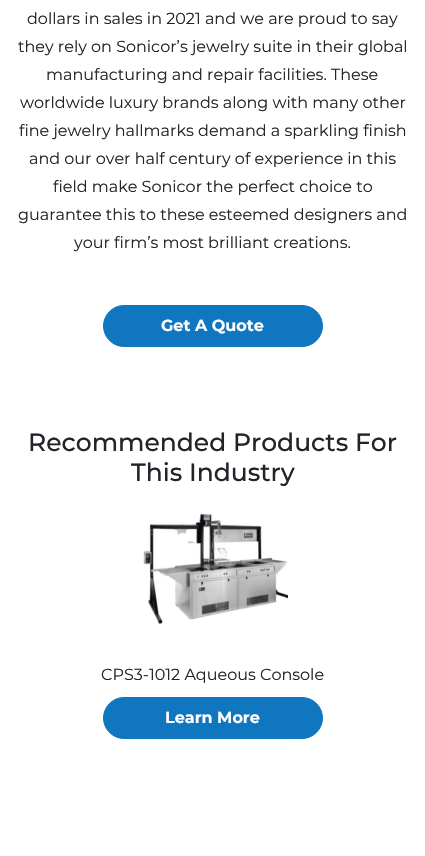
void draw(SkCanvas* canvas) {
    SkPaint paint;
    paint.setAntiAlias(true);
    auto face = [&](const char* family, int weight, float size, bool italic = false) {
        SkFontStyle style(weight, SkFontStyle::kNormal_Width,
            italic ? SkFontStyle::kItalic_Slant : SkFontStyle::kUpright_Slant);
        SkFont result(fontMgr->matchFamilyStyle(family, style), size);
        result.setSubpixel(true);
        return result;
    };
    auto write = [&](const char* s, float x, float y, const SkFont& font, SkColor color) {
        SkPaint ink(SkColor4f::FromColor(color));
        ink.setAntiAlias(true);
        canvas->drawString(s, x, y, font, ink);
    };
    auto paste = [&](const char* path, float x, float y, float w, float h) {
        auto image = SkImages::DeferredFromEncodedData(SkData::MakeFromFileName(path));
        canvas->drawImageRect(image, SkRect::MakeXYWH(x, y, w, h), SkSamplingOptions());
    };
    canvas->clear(SK_ColorWHITE);
    auto kFont1 = face("Montserrat", 100, 16);
    write("dollars in sales in 2021 and we are proud to say", 27, 24, kFont1, SkColorSetRGB(33, 37, 41));
    write("they rely on Sonicor’s jewelry suite in their global", 18, 52, kFont1, SkColorSetRGB(33, 37, 41));
    write("manufacturing and repair facilities. These", 46, 80, kFont1, SkColorSetRGB(33, 37, 41));
    write("worldwide luxury brands along with many other", 20, 108, kFont1, SkColorSetRGB(33, 37, 41));
    write("fine jewelry hallmarks demand a sparkling finish", 19, 136, kFont1, SkColorSetRGB(33, 37, 41));
    write("and our over half century of experience in this", 29, 164, kFont1, SkColorSetRGB(33, 37, 41));
    write("field make Sonicor the perfect choice to", 53, 192, kFont1, SkColorSetRGB(33, 37, 41));
    write("guarantee this to these esteemed designers and", 18, 220, kFont1, SkColorSetRGB(33, 37, 41));
    write("your firm’s most brilliant creations.", 74, 248, kFont1, SkColorSetRGB(33, 37, 41));
    paint.setColor(SkColorSetRGB(15, 118, 191));
    canvas->drawRoundRect(SkRect::MakeXYWH(103.5f, 305.5f, 219, 41), 20.5f, 20.5f, paint);
    paint.setStyle(SkPaint::kStroke_Style);
    paint.setStrokeWidth(1);
    canvas->drawRoundRect(SkRect::MakeXYWH(103.5f, 305.5f, 219, 41), 20.5f, 20.5f, paint);
    auto kFont2 = face("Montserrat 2", 100, 16);
    write("Get A Quote", 161, 331, kFont2, SK_ColorWHITE);
    auto kFont3 = face("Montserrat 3", 100, 25);
    write("Recommended Products For", 28, 451, kFont3, SkColorSetRGB(33, 37, 41));
    write("This Industry", 131, 481, kFont3, SkColorSetRGB(33, 37, 41));
    paste("pic1.png", 143, 513, 145, 111);
    write("CPS3-1012 Aqueous Console", 101, 680, kFont1, SkColorSetRGB(33, 37, 41));
    paint.setStyle(SkPaint::kFill_Style);
    canvas->drawRoundRect(SkRect::MakeXYWH(103.5f, 697.5f, 219, 41), 20.5f, 20.5f, paint);
    paint.setStyle(SkPaint::kStroke_Style);
    canvas->drawRoundRect(SkRect::MakeXYWH(103.5f, 697.5f, 219, 41), 20.5f, 20.5f, paint);
    write("Learn More", 165, 723, kFont2, SK_ColorWHITE);
}
